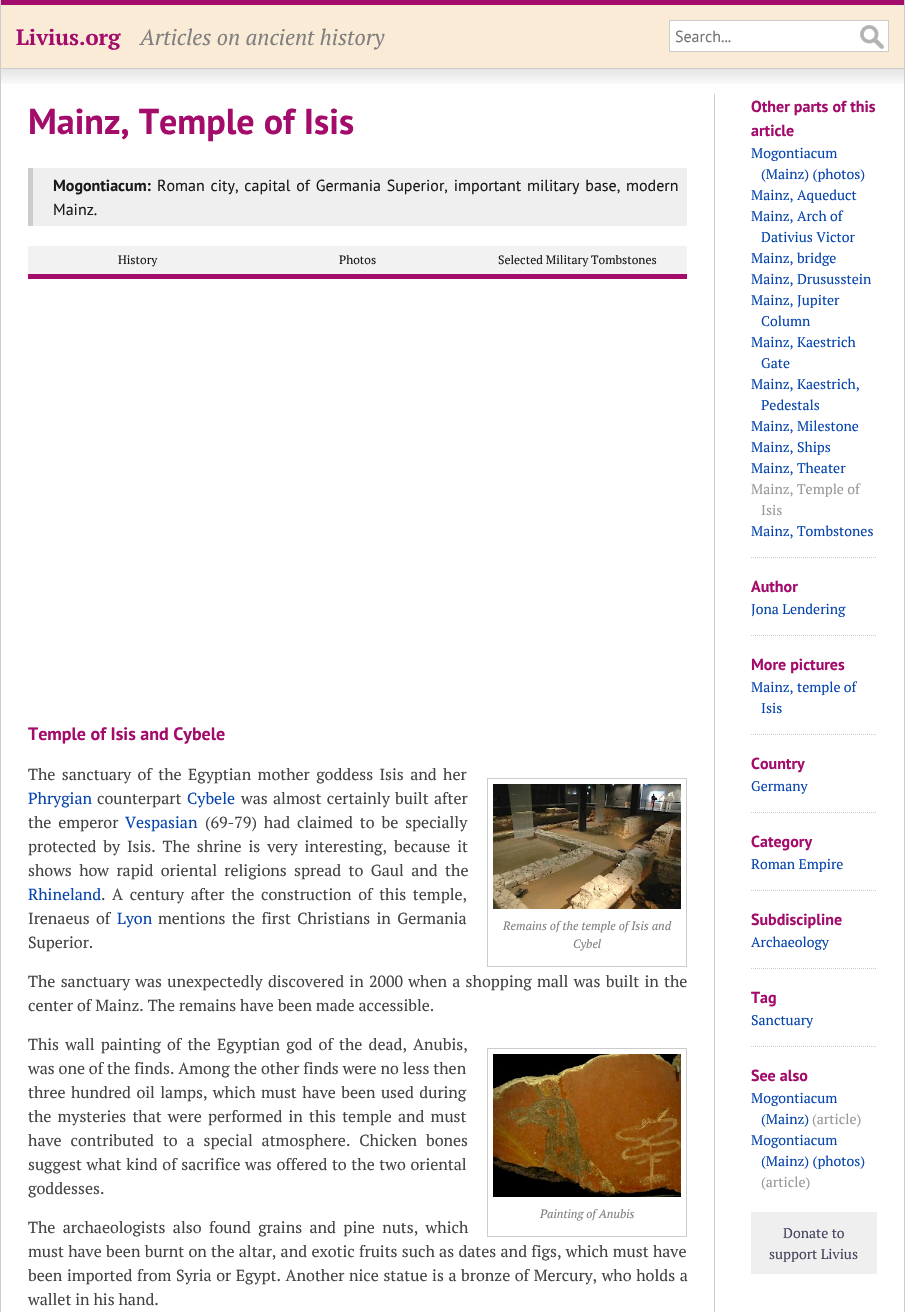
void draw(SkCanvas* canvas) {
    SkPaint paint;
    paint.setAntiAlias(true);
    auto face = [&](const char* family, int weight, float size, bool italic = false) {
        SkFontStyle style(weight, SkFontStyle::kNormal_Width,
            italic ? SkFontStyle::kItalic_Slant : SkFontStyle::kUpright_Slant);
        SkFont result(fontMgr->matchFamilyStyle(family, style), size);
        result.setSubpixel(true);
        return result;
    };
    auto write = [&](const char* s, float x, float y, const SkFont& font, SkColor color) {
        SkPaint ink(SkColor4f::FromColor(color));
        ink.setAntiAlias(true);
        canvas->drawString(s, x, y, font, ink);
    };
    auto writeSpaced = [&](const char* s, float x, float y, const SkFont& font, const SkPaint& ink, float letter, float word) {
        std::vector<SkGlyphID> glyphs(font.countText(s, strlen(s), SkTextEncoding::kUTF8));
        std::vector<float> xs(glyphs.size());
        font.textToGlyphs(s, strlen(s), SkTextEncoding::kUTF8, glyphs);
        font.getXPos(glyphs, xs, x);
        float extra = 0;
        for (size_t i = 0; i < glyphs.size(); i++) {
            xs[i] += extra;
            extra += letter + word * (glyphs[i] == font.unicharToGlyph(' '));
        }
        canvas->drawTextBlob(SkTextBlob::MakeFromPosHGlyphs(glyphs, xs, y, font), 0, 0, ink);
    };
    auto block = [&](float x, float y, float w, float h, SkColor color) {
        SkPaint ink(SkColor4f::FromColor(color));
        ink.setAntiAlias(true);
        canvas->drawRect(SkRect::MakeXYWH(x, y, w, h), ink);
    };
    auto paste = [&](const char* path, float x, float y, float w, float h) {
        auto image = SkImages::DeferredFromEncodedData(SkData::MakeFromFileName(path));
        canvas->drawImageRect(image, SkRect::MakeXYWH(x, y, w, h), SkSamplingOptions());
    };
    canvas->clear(SK_ColorWHITE);
    block(904, 0, 1, 1312, SkColorSetRGB(204, 204, 204));
    block(0, 0, 1, 1312, SkColorSetRGB(204, 204, 204));
    block(1, 5, 903, 63, SkColorSetRGB(250, 235, 215));
    block(1, 0, 903, 5, SkColorSetRGB(164, 12, 107));
    block(1, 68, 903, 1, SkColorSetRGB(204, 204, 204));
    auto kFont1 = face("PT Serif", 700, 22);
    write("Livius.org", 16, 45, kFont1, SkColorSetRGB(164, 12, 107));
    auto kFont2 = face("PT Serif", 400, 22, true);
    write("Articles on ancient history", 140, 45, kFont2, SkColorSetRGB(128, 128, 128));
    block(670, 21, 218, 30, SK_ColorWHITE);
    paste("pic1.png", 860, 25, 24, 24);
    paint.setStyle(SkPaint::kStroke_Style);
    paint.setStrokeWidth(1);
    paint.setColor(SkColorSetRGB(204, 204, 204));
    canvas->drawRect(SkRect::MakeXYWH(669.5f, 20.5f, 219, 31), paint);
    auto kFont3 = face("PT Sans", 400, 16);
    write("Search...", 675, 42, kFont3, SkColorSetRGB(117, 117, 117));
    paste("pic2.png", 1, 69, 903, 15);
    block(714, 94, 1, 1218, SkColorSetRGB(204, 204, 204));
    auto kFont4 = face("PT Sans", 700, 36);
    write("Mainz, Temple of Isis", 28, 134, kFont4, SkColorSetRGB(164, 12, 107));
    block(33, 168, 654, 58, SkColorSetRGB(239, 239, 239));
    block(28, 168, 5, 58, SkColorSetRGB(204, 204, 204));
    auto kFont5 = face("PT Sans", 700, 16);
    write("Mogontiacum:", 53, 191, kFont5, SkColorSetRGB(26, 26, 26));
    paint.setStyle(SkPaint::kFill_Style);
    paint.setColor(SkColorSetRGB(26, 26, 26));
    writeSpaced("Roman city, capital of Germania Superior, important military base, modern", 157, 191, kFont3, paint, 0, 1.5f);
    write("Mainz.", 53, 215, kFont3, SkColorSetRGB(26, 26, 26));
    block(28, 274, 659, 5, SkColorSetRGB(164, 12, 107));
    block(28, 246, 659, 28, SkColorSetRGB(242, 242, 242));
    auto kFont6 = face("PT Serif", 400, 12);
    write("History", 118, 264, kFont6, SkColorSetRGB(26, 26, 26));
    write("Photos", 339, 264, kFont6, SkColorSetRGB(26, 26, 26));
    write("Selected Military Tombstones", 498, 264, kFont6, SkColorSetRGB(26, 26, 26));
    auto kFont7 = face("PT Sans", 700, 18);
    write("Temple of Isis and Cybele", 28, 740, kFont7, SkColorSetRGB(164, 12, 107));
    auto kFont8 = face("PT Serif", 400, 16);
    paint.setColor(SkColorSetRGB(68, 68, 68));
    writeSpaced("The sanctuary of the Egyptian mother goddess Isis and her", 28, 780, kFont8, paint, 0, 2.5f);
    write("Phrygian", 28, 804, kFont8, SkColorSetRGB(6, 69, 173));
    write("counterpart", 97, 804, kFont8, SkColorSetRGB(68, 68, 68));
    write("Cybele", 187, 804, kFont8, SkColorSetRGB(6, 69, 173));
    writeSpaced("was almost certainly built after", 241, 804, kFont8, paint, 0, 1.5f);
    writeSpaced("the emperor", 28, 828, kFont8, paint, 0, 3);
    write("Vespasian", 125, 828, kFont8, SkColorSetRGB(6, 69, 173));
    writeSpaced("(69-79) had claimed to be specially", 205, 828, kFont8, paint, 0, 3);
    writeSpaced("protected by Isis. The shrine is very interesting, because it", 28, 852, kFont8, paint, 0, 3);
    writeSpaced("shows how rapid oriental religions spread to Gaul and the", 28, 876, kFont8, paint, 0, 3.5f);
    write("Rhineland", 28, 900, kFont8, SkColorSetRGB(6, 69, 173));
    writeSpaced(". A century after the construction of this temple,", 101, 900, kFont8, paint, 0, 2.75f);
    writeSpaced("Irenaeus of", 28, 924, kFont8, paint, 0, 2.5f);
    write("Lyon", 117, 924, kFont8, SkColorSetRGB(6, 69, 173));
    writeSpaced("mentions the first Christians in Germania", 158, 924, kFont8, paint, 0, 2.5f);
    write("Superior.", 28, 948, kFont8, SkColorSetRGB(68, 68, 68));
    paint.setStyle(SkPaint::kStroke_Style);
    paint.setColor(SkColorSetRGB(204, 204, 204));
    canvas->drawRect(SkRect::MakeXYWH(487.5f, 778.5f, 199, 188), paint);
    paste("pic3.png", 493, 784, 188, 125);
    auto kFont9 = face("PT Serif", 400, 12, true);
    write("Remains of the temple of Isis and", 503, 930, kFont9, SkColorSetRGB(128, 128, 128));
    write("Cybel", 573, 948, kFont9, SkColorSetRGB(128, 128, 128));
    paint.setStyle(SkPaint::kFill_Style);
    paint.setColor(SkColorSetRGB(68, 68, 68));
    writeSpaced("The sanctuary was unexpectedly discovered in 2000 when a shopping mall was built in the", 28, 987, kFont8, paint, 0, 1.4f);
    write("center of Mainz. The remains have been made accessible.", 28, 1011, kFont8, SkColorSetRGB(68, 68, 68));
    writeSpaced("This wall painting of the Egyptian god of the dead, Anubis,", 28, 1050, kFont8, paint, 0, 2.25f);
    write("was one of the finds. Among the other finds were no less then", 28, 1074, kFont8, SkColorSetRGB(68, 68, 68));
    writeSpaced("three hundred oil lamps, which must have been used during", 28, 1098, kFont8, paint, 0, 1.5f);
    writeSpaced("the mysteries that were performed in this temple and must", 28, 1122, kFont8, paint, 0, 2.25f);
    writeSpaced("have contributed to a special atmosphere. Chicken bones", 28, 1146, kFont8, paint, 0, 5);
    writeSpaced("suggest what kind of sacrifice was offered to the two oriental", 28, 1170, kFont8, paint, 0, 0.75f);
    write("goddesses.", 28, 1194, kFont8, SkColorSetRGB(68, 68, 68));
    paint.setStyle(SkPaint::kStroke_Style);
    paint.setColor(SkColorSetRGB(204, 204, 204));
    canvas->drawRect(SkRect::MakeXYWH(487.5f, 1048.5f, 199, 188), paint);
    paste("pic4.png", 493, 1054, 188, 143);
    write("Painting of Anubis", 540, 1218, kFont9, SkColorSetRGB(128, 128, 128));
    paint.setStyle(SkPaint::kFill_Style);
    paint.setColor(SkColorSetRGB(68, 68, 68));
    writeSpaced("The archaeologists also found grains and pine nuts, which", 28, 1233, kFont8, paint, 0, 3.5f);
    writeSpaced("must have been burnt on the altar, and exotic fruits such as dates and figs, which must have", 28, 1257, kFont8, paint, 0, 0.4f);
    writeSpaced("been imported from Syria or Egypt. Another nice statue is a bronze of Mercury, who holds a", 28, 1281, kFont8, paint, 0, 0.7f);
    write("wallet in his hand.", 28, 1305, kFont8, SkColorSetRGB(68, 68, 68));
    write("Other parts of this", 751, 112, kFont5, SkColorSetRGB(164, 12, 107));
    write("article", 751, 136, kFont5, SkColorSetRGB(164, 12, 107));
    auto kFont10 = face("PT Serif", 400, 14);
    write("Mogontiacum", 751, 158, kFont10, SkColorSetRGB(6, 69, 173));
    write("(Mainz) (photos)", 761, 179, kFont10, SkColorSetRGB(6, 69, 173));
    write("Mainz, Aqueduct", 751, 200, kFont10, SkColorSetRGB(6, 69, 173));
    write("Mainz, Arch of", 751, 221, kFont10, SkColorSetRGB(6, 69, 173));
    write("Dativius Victor", 761, 242, kFont10, SkColorSetRGB(6, 69, 173));
    write("Mainz, bridge", 751, 263, kFont10, SkColorSetRGB(6, 69, 173));
    write("Mainz, Drususstein", 751, 284, kFont10, SkColorSetRGB(6, 69, 173));
    write("Mainz, Jupiter", 751, 305, kFont10, SkColorSetRGB(6, 69, 173));
    write("Column", 761, 326, kFont10, SkColorSetRGB(6, 69, 173));
    write("Mainz, Kaestrich", 751, 347, kFont10, SkColorSetRGB(6, 69, 173));
    write("Gate", 761, 368, kFont10, SkColorSetRGB(6, 69, 173));
    write("Mainz, Kaestrich,", 751, 389, kFont10, SkColorSetRGB(6, 69, 173));
    write("Pedestals", 761, 410, kFont10, SkColorSetRGB(6, 69, 173));
    write("Mainz, Milestone", 751, 431, kFont10, SkColorSetRGB(6, 69, 173));
    write("Mainz, Ships", 751, 452, kFont10, SkColorSetRGB(6, 69, 173));
    write("Mainz, Theater", 751, 473, kFont10, SkColorSetRGB(6, 69, 173));
    write("Mainz, Temple of", 751, 494, kFont10, SkColorSetRGB(153, 153, 153));
    write("Isis", 761, 515, kFont10, SkColorSetRGB(153, 153, 153));
    write("Mainz, Tombstones", 751, 536, kFont10, SkColorSetRGB(6, 69, 173));
    paint.setStyle(SkPaint::kStroke_Style);
    paint.setColor(SkColorSetRGB(204, 204, 204));
    paint.setPathEffect(SkDashPathEffect::Make({{1, 1}}, 0));
    canvas->drawPath(SkPathBuilder().moveTo(751, 557.5f).lineTo(877, 557.5f).detach(), paint);
    paint.setPathEffect(nullptr);
    write("Author", 751, 592, kFont5, SkColorSetRGB(164, 12, 107));
    write("Jona Lendering", 751, 614, kFont10, SkColorSetRGB(6, 69, 173));
    paint.setPathEffect(SkDashPathEffect::Make({{1, 1}}, 0));
    canvas->drawPath(SkPathBuilder().moveTo(751, 635.5f).lineTo(877, 635.5f).detach(), paint);
    paint.setPathEffect(nullptr);
    write("More pictures", 751, 670, kFont5, SkColorSetRGB(164, 12, 107));
    write("Mainz, temple of", 751, 692, kFont10, SkColorSetRGB(6, 69, 173));
    write("Isis", 761, 713, kFont10, SkColorSetRGB(6, 69, 173));
    paint.setPathEffect(SkDashPathEffect::Make({{1, 1}}, 0));
    canvas->drawPath(SkPathBuilder().moveTo(751, 734.5f).lineTo(877, 734.5f).detach(), paint);
    paint.setPathEffect(nullptr);
    write("Country", 751, 769, kFont5, SkColorSetRGB(164, 12, 107));
    write("Germany", 751, 791, kFont10, SkColorSetRGB(6, 69, 173));
    paint.setPathEffect(SkDashPathEffect::Make({{1, 1}}, 0));
    canvas->drawPath(SkPathBuilder().moveTo(751, 812.5f).lineTo(877, 812.5f).detach(), paint);
    paint.setPathEffect(nullptr);
    write("Category", 751, 847, kFont5, SkColorSetRGB(164, 12, 107));
    write("Roman Empire", 751, 869, kFont10, SkColorSetRGB(6, 69, 173));
    paint.setPathEffect(SkDashPathEffect::Make({{1, 1}}, 0));
    canvas->drawPath(SkPathBuilder().moveTo(751, 890.5f).lineTo(877, 890.5f).detach(), paint);
    paint.setPathEffect(nullptr);
    write("Subdiscipline", 751, 925, kFont5, SkColorSetRGB(164, 12, 107));
    write("Archaeology", 751, 947, kFont10, SkColorSetRGB(6, 69, 173));
    paint.setPathEffect(SkDashPathEffect::Make({{1, 1}}, 0));
    canvas->drawPath(SkPathBuilder().moveTo(751, 968.5f).lineTo(877, 968.5f).detach(), paint);
    paint.setPathEffect(nullptr);
    write("Tag", 751, 1003, kFont5, SkColorSetRGB(164, 12, 107));
    write("Sanctuary", 751, 1025, kFont10, SkColorSetRGB(6, 69, 173));
    paint.setPathEffect(SkDashPathEffect::Make({{1, 1}}, 0));
    canvas->drawPath(SkPathBuilder().moveTo(751, 1046.5f).lineTo(877, 1046.5f).detach(), paint);
    paint.setPathEffect(nullptr);
    write("See also", 751, 1081, kFont5, SkColorSetRGB(164, 12, 107));
    write("Mogontiacum", 751, 1103, kFont10, SkColorSetRGB(6, 69, 173));
    write("(Mainz)", 761, 1124, kFont10, SkColorSetRGB(6, 69, 173));
    write("(article)", 812, 1124, kFont10, SkColorSetRGB(153, 153, 153));
    write("Mogontiacum", 751, 1145, kFont10, SkColorSetRGB(6, 69, 173));
    write("(Mainz) (photos)", 761, 1166, kFont10, SkColorSetRGB(6, 69, 173));
    write("(article)", 761, 1187, kFont10, SkColorSetRGB(153, 153, 153));
    block(751, 1212, 126, 62, SkColorSetRGB(239, 239, 239));
    write("Donate to", 783, 1238, kFont10, SkColorSetRGB(68, 68, 94));
    write("support Livius", 769, 1259, kFont10, SkColorSetRGB(68, 68, 94));
}
